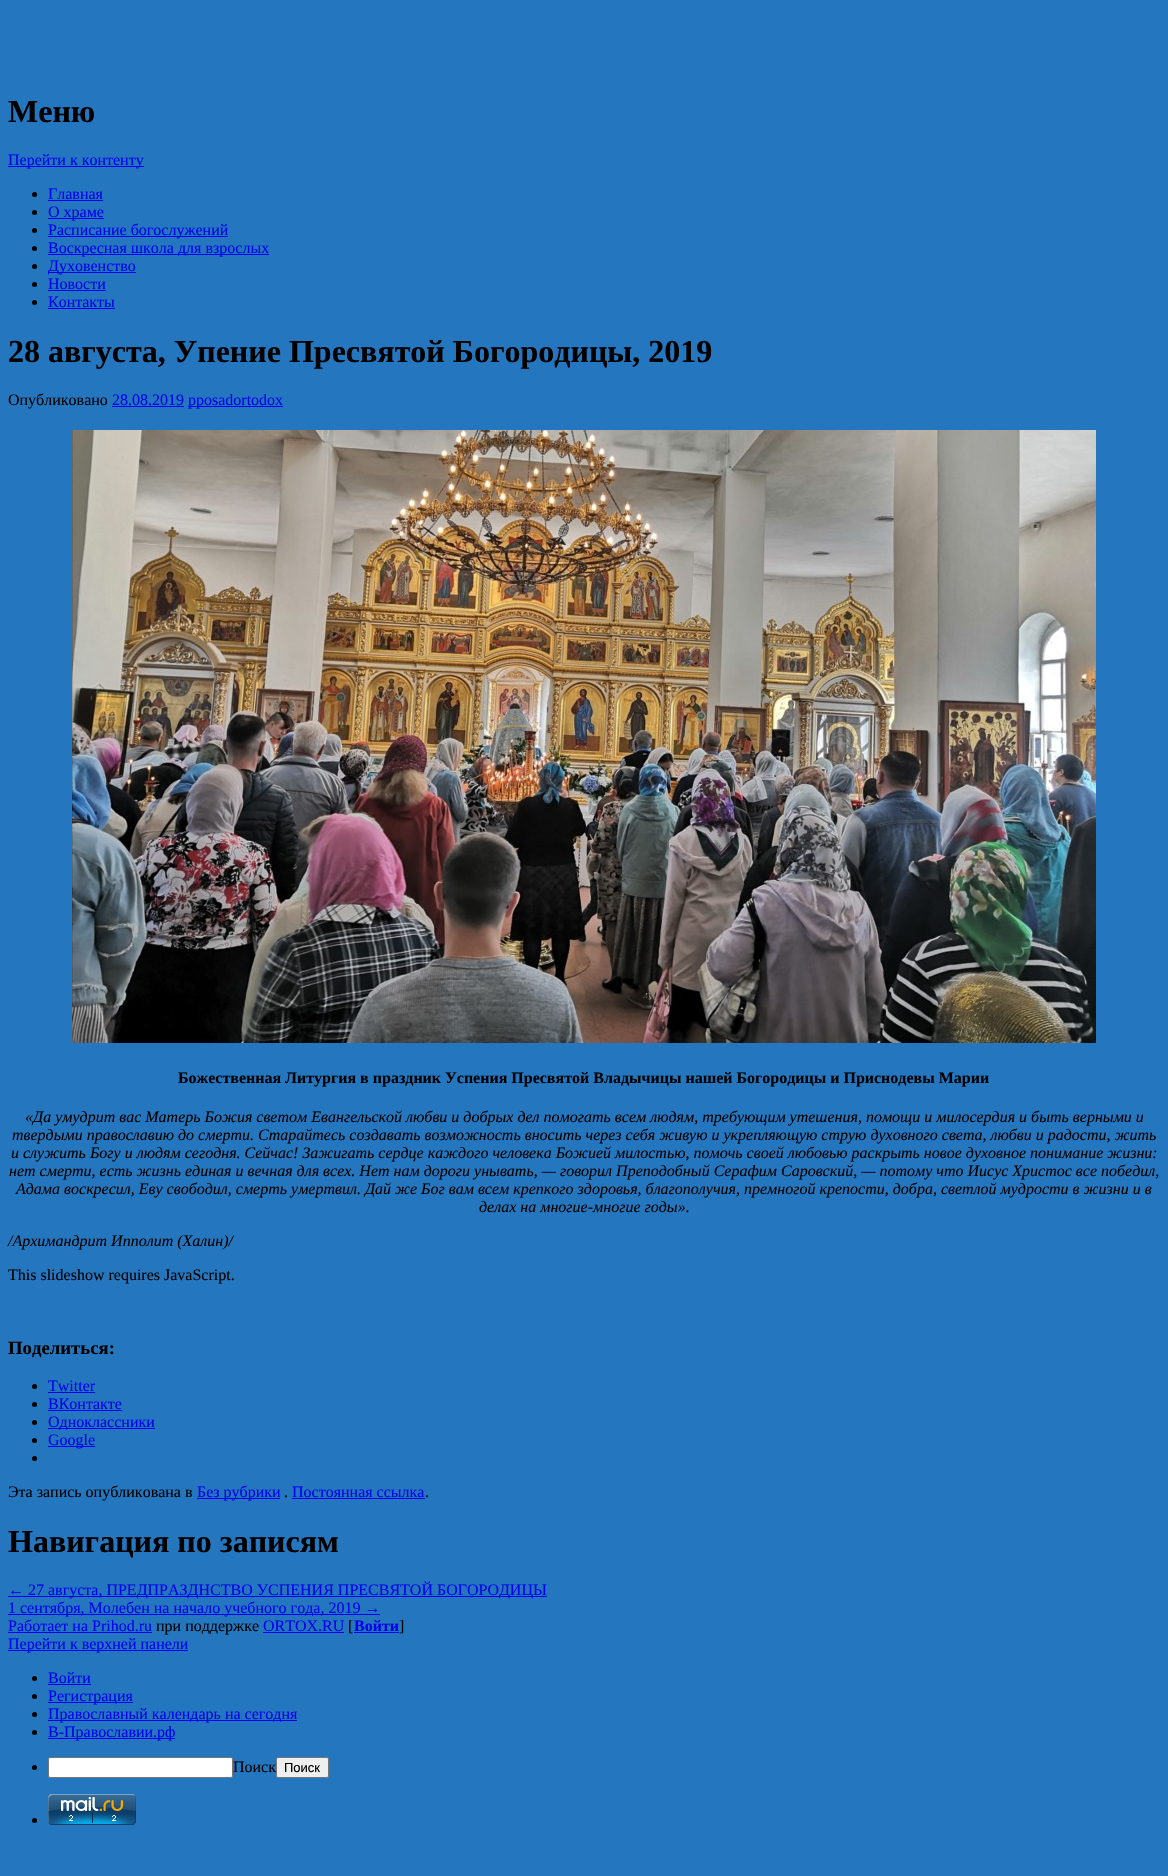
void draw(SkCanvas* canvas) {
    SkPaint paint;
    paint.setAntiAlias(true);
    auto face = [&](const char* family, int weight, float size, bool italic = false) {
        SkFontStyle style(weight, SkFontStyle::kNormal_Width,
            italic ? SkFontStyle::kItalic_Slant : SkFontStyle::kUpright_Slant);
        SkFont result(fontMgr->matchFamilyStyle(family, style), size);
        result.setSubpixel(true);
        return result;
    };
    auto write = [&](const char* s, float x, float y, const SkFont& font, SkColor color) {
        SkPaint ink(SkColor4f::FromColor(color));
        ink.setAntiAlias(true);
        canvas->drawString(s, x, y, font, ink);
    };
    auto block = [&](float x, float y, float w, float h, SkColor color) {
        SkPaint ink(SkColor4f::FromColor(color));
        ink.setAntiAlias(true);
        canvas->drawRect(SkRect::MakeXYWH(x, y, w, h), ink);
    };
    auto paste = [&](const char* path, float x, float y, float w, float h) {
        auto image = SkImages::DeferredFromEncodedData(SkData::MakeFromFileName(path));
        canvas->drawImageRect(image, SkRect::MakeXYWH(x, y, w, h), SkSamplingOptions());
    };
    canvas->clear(SkColorSetRGB(36, 118, 191));
    auto kFont1 = face("Liberation Serif", 700, 32);
    write("Меню", 8, 122, kFont1, SK_ColorBLACK);
    block(8, 166, 136, 1, SkColorSetRGB(0, 0, 238));
    auto kFont2 = face("Liberation Serif", 400, 16);
    write("Перейти к контенту", 8, 165, kFont2, SkColorSetRGB(0, 0, 238));
    paint.setColor(SK_ColorBLACK);
    canvas->drawCircle(34.5f, 194.5f, 2.5f, paint);
    write("Главная", 48, 199, kFont2, SkColorSetRGB(0, 0, 238));
    block(48, 200, 55, 1, SkColorSetRGB(0, 0, 238));
    canvas->drawCircle(34.5f, 212.5f, 2.5f, paint);
    block(48, 218, 56, 1, SkColorSetRGB(0, 0, 238));
    write("О храме", 48, 217, kFont2, SkColorSetRGB(0, 0, 238));
    canvas->drawCircle(34.5f, 230.5f, 2.5f, paint);
    block(48, 236, 180, 1, SkColorSetRGB(0, 0, 238));
    write("Расписание богослужений", 48, 235, kFont2, SkColorSetRGB(0, 0, 238));
    canvas->drawCircle(34.5f, 248.5f, 2.5f, paint);
    block(48, 254, 221, 1, SkColorSetRGB(0, 0, 238));
    write("Воскресная школа для взрослых", 48, 253, kFont2, SkColorSetRGB(0, 0, 238));
    canvas->drawCircle(34.5f, 266.5f, 2.5f, paint);
    block(48, 272, 88, 1, SkColorSetRGB(0, 0, 238));
    write("Духовенство", 48, 271, kFont2, SkColorSetRGB(0, 0, 238));
    canvas->drawCircle(34.5f, 284.5f, 2.5f, paint);
    write("Новости", 48, 289, kFont2, SkColorSetRGB(0, 0, 238));
    block(48, 290, 58, 1, SkColorSetRGB(0, 0, 238));
    canvas->drawCircle(34.5f, 302.5f, 2.5f, paint);
    write("Контакты", 48, 307, kFont2, SkColorSetRGB(0, 0, 238));
    block(48, 308, 67, 1, SkColorSetRGB(0, 0, 238));
    write("28 августа, Упение Пресвятой Богородицы, 2019", 8, 362, kFont1, SK_ColorBLACK);
    write("Опубликовано", 8, 405, kFont2, SK_ColorBLACK);
    write("28.08.2019", 112, 405, kFont2, SkColorSetRGB(0, 0, 238));
    block(112, 406, 72, 1, SkColorSetRGB(0, 0, 238));
    block(188, 406, 95, 1, SkColorSetRGB(0, 0, 238));
    write("pposadortodox", 188, 405, kFont2, SkColorSetRGB(0, 0, 238));
    paste("pic1.png", 72, 430, 1024, 613);
    auto kFont3 = face("Liberation Serif", 700, 16);
    write("Божественная Литургия в праздник Успения Пресвятой Владычицы нашей Богородицы и Приснодевы Марии", 178, 1083, kFont3, SK_ColorBLACK);
    auto kFont4 = face("Liberation Serif", 400, 16, true);
    write("«Да умудрит вас Матерь Божия светом Евангельской любви и добрых дел помогать всем людям, требующим утешения, помощи и милосердия и быть верными и", 25, 1122, kFont4, SK_ColorBLACK);
    write("твердыми православию до смерти. Старайтесь создавать возможность вносить через себя живую и укрепляющую струю духовного света, любви и радости, жить", 12, 1140, kFont4, SK_ColorBLACK);
    write("и служить Богу и людям сегодня. Сейчас! Зажигать сердце каждого человека Божией милостью, помочь своей любовью раскрыть новое духовное понимание жизни:", 11, 1158, kFont4, SK_ColorBLACK);
    write("нет смерти, есть жизнь единая и вечная для всех. Нет нам дороги унывать, — говорил Преподобный Серафим Саровский, — потому что Иисус Христос все победил,", 9, 1176, kFont4, SK_ColorBLACK);
    write("Адама воскресил, Еву свободил, смерть умертвил. Дай же Бог вам всем крепкого здоровья, благополучия, премногой крепости, добра, светлой мудрости в жизни и в", 16, 1194, kFont4, SK_ColorBLACK);
    write("делах на многие-многие годы».", 479, 1212, kFont4, SK_ColorBLACK);
    write("/Архимандрит Ипполит (Халин)/", 8, 1246, kFont4, SK_ColorBLACK);
    write("This slideshow requires JavaScript.", 8, 1280, kFont2, SK_ColorBLACK);
    auto kFont5 = face("Liberation Serif", 700, 18.75f);
    write("Поделиться:", 8, 1354, kFont5, SK_ColorBLACK);
    canvas->drawCircle(34.5f, 1386.5f, 2.5f, paint);
    write("Twitter", 48, 1391, kFont2, SkColorSetRGB(0, 0, 238));
    block(48, 1392, 47, 1, SkColorSetRGB(0, 0, 238));
    canvas->drawCircle(34.5f, 1404.5f, 2.5f, paint);
    write("ВКонтакте", 48, 1409, kFont2, SkColorSetRGB(0, 0, 238));
    block(48, 1410, 74, 1, SkColorSetRGB(0, 0, 238));
    canvas->drawCircle(34.5f, 1422.5f, 2.5f, paint);
    block(48, 1428, 107, 1, SkColorSetRGB(0, 0, 238));
    write("Одноклассники", 48, 1427, kFont2, SkColorSetRGB(0, 0, 238));
    canvas->drawCircle(34.5f, 1440.5f, 2.5f, paint);
    block(48, 1446, 47, 1, SkColorSetRGB(0, 0, 238));
    write("Google", 48, 1445, kFont2, SkColorSetRGB(0, 0, 238));
    canvas->drawCircle(34.5f, 1458.5f, 2.5f, paint);
    write("Эта запись опубликована в", 8, 1497, kFont2, SK_ColorBLACK);
    block(197, 1498, 83, 1, SkColorSetRGB(0, 0, 238));
    write("Без рубрики", 197, 1497, kFont2, SkColorSetRGB(0, 0, 238));
    write(".", 284, 1497, kFont2, SK_ColorBLACK);
    write("Постоянная ссылка", 292, 1497, kFont2, SkColorSetRGB(0, 0, 238));
    block(292, 1498, 133, 1, SkColorSetRGB(0, 0, 238));
    write(".", 425, 1497, kFont2, SK_ColorBLACK);
    write("Навигация по записям", 8, 1552, kFont1, SK_ColorBLACK);
    block(8, 1596, 539, 1, SkColorSetRGB(0, 0, 238));
    write("← 27 августа, ПРЕДПРАЗДНСТВО УСПЕНИЯ ПРЕСВЯТОЙ БОГОРОДИЦЫ", 8, 1595, kFont2, SkColorSetRGB(0, 0, 238));
    block(8, 1614, 372, 1, SkColorSetRGB(0, 0, 238));
    write("1 сентября, Молебен на начало учебного года, 2019 →", 8, 1613, kFont2, SkColorSetRGB(0, 0, 238));
    write("Работает на Prihod.ru", 8, 1631, kFont2, SkColorSetRGB(0, 0, 238));
    write("при поддержке", 156, 1631, kFont2, SK_ColorBLACK);
    block(8, 1632, 144, 1, SkColorSetRGB(0, 0, 238));
    block(263, 1632, 81, 1, SkColorSetRGB(0, 0, 238));
    write("ORTOX.RU", 263, 1631, kFont2, SkColorSetRGB(0, 0, 238));
    write("[", 348, 1631, kFont2, SK_ColorBLACK);
    write("Войти", 354, 1631, kFont3, SkColorSetRGB(0, 0, 238));
    block(354, 1632, 45, 1, SkColorSetRGB(0, 0, 238));
    write("]", 399, 1631, kFont2, SK_ColorBLACK);
    block(8, 1650, 180, 1, SkColorSetRGB(0, 0, 238));
    write("Перейти к верхней панели", 8, 1649, kFont2, SkColorSetRGB(0, 0, 238));
    canvas->drawCircle(34.5f, 1678.5f, 2.5f, paint);
    write("Войти", 48, 1683, kFont2, SkColorSetRGB(0, 0, 238));
    block(48, 1684, 43, 1, SkColorSetRGB(0, 0, 238));
    canvas->drawCircle(34.5f, 1696.5f, 2.5f, paint);
    block(48, 1702, 85, 1, SkColorSetRGB(0, 0, 238));
    write("Регистрация", 48, 1701, kFont2, SkColorSetRGB(0, 0, 238));
    canvas->drawCircle(34.5f, 1714.5f, 2.5f, paint);
    block(48, 1720, 249, 1, SkColorSetRGB(0, 0, 238));
    write("Православный календарь на сегодня", 48, 1719, kFont2, SkColorSetRGB(0, 0, 238));
    canvas->drawCircle(34.5f, 1732.5f, 2.5f, paint);
    block(48, 1738, 127, 1, SkColorSetRGB(0, 0, 238));
    write("В-Православии.рф", 48, 1737, kFont2, SkColorSetRGB(0, 0, 238));
    canvas->drawCircle(34.5f, 1767.5f, 2.5f, paint);
    paint.setColor(SK_ColorWHITE);
    canvas->drawRoundRect(SkRect::MakeXYWH(48.5f, 1757.5f, 184, 20), 1.5f, 1.5f, paint);
    paint.setStyle(SkPaint::kStroke_Style);
    paint.setStrokeWidth(1);
    paint.setColor(SkColorSetRGB(118, 118, 118));
    canvas->drawRoundRect(SkRect::MakeXYWH(48.5f, 1757.5f, 184, 20), 1.5f, 1.5f, paint);
    write("Поиск", 233, 1772, kFont2, SK_ColorBLACK);
    paint.setStyle(SkPaint::kFill_Style);
    paint.setColor(SkColorSetRGB(239, 239, 239));
    canvas->drawRoundRect(SkRect::MakeXYWH(276.5f, 1757.5f, 52, 20), 1.5f, 1.5f, paint);
    paint.setStyle(SkPaint::kStroke_Style);
    paint.setColor(SkColorSetRGB(118, 118, 118));
    canvas->drawRoundRect(SkRect::MakeXYWH(276.5f, 1757.5f, 52, 20), 1.5f, 1.5f, paint);
    auto kFont6 = face("Liberation Sans", 400, 13);
    write("Поиск", 284, 1772, kFont6, SK_ColorBLACK);
    paint.setStyle(SkPaint::kFill_Style);
    paint.setColor(SK_ColorBLACK);
    canvas->drawCircle(34.5f, 1820.5f, 2.5f, paint);
    paste("pic2.png", 48, 1794, 88, 31);
}
